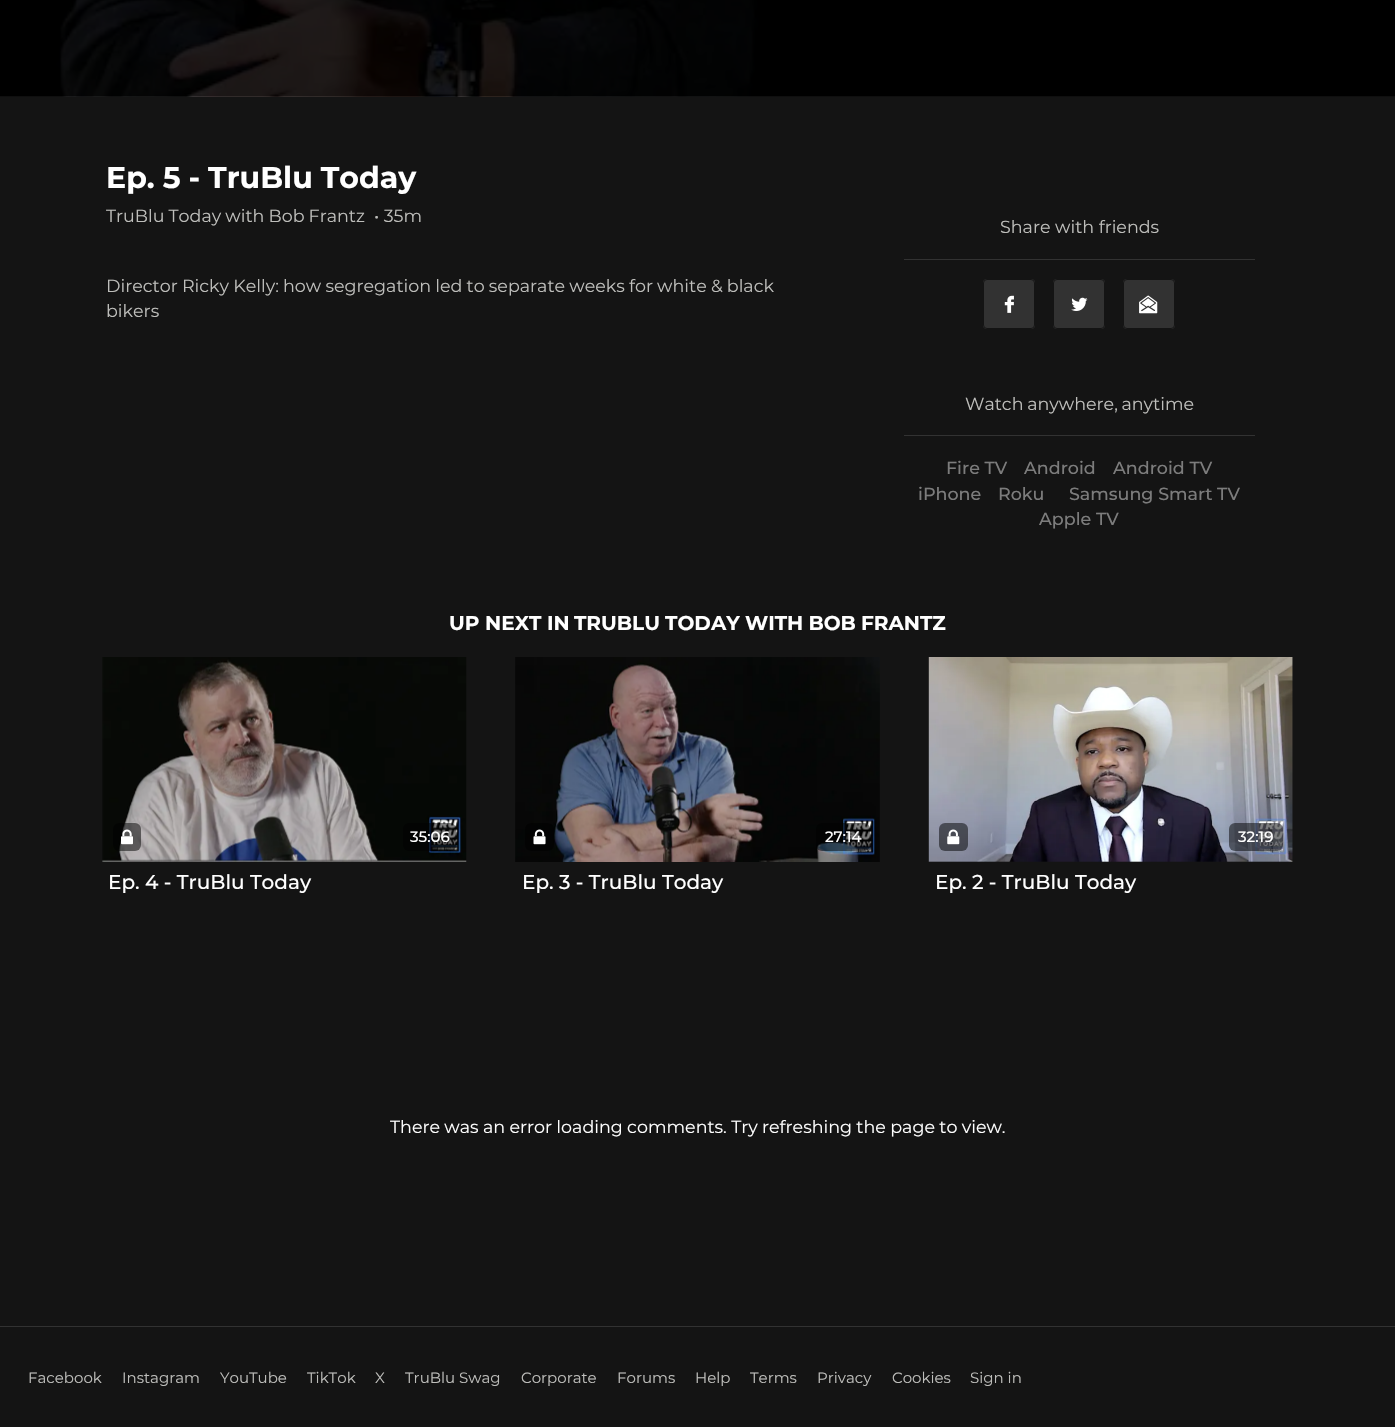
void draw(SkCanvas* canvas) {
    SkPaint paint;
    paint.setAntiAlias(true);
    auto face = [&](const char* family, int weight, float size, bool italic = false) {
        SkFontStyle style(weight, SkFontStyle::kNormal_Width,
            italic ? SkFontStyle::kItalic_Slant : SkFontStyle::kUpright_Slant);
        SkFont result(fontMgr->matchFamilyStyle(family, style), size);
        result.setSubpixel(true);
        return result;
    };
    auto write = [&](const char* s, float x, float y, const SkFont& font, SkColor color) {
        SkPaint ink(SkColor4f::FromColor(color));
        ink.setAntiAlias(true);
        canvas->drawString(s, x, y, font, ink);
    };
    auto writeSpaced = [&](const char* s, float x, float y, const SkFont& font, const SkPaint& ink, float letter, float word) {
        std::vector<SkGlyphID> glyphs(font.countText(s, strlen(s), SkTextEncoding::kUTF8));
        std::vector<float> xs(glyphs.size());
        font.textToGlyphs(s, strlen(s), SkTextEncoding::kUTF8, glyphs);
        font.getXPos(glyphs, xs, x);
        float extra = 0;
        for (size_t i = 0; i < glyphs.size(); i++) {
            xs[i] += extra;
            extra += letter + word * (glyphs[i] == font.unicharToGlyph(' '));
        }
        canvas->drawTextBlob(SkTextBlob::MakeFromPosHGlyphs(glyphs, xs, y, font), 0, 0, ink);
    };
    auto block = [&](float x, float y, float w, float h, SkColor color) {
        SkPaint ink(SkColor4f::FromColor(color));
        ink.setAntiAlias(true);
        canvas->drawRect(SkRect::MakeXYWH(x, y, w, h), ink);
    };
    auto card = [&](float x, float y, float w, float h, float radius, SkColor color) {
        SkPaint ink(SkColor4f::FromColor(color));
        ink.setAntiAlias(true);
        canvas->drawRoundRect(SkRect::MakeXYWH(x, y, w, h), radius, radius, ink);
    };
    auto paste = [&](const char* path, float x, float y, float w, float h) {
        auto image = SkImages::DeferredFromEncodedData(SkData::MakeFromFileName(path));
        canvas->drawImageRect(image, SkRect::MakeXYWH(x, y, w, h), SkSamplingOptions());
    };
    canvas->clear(SkColorSetRGB(20, 20, 20));
    paste("pic1.png", 0, 0, 1395, 97);
    auto kFont1 = face("Montserrat", 700, 30);
    paint.setColor(SK_ColorWHITE);
    writeSpaced("Ep. 5 - TruBlu Today", 106, 188, kFont1, paint, 0, -0.5f);
    auto kFont2 = face("Montserrat", 400, 17.5f);
    paint.setColor(SkColorSetRGB(190, 190, 187));
    writeSpaced("TruBlu Today with Bob Frantz", 106, 222, kFont2, paint, 0, -0.5f);
    write("• 35m", 374, 222, kFont2, SkColorSetRGB(190, 190, 187));
    writeSpaced("Director Ricky Kelly: how segregation led to separate weeks for white & black", 106, 292, kFont2, paint, 0, -0.4f);
    write("bikers", 106, 317, kFont2, SkColorSetRGB(190, 190, 187));
    block(904, 259, 351, 1, SkColorSetRGB(50, 50, 50));
    write("Share with friends", 1000, 233, kFont2, SkColorSetRGB(190, 190, 187));
    card(983, 279, 52, 50, 4, SkColorSetRGB(50, 50, 50));
    paste("pic2.png", 1004, 295, 10, 18);
    paint.setStyle(SkPaint::kStroke_Style);
    paint.setStrokeWidth(1);
    paint.setColor(SkColorSetRGB(20, 20, 20));
    canvas->drawRoundRect(SkRect::MakeXYWH(983.5f, 279.5f, 51, 49), 3.5f, 3.5f, paint);
    card(1053, 279, 52, 50, 4, SkColorSetRGB(50, 50, 50));
    paste("pic3.png", 1071, 297, 17, 14);
    canvas->drawRoundRect(SkRect::MakeXYWH(1053.5f, 279.5f, 51, 49), 3.5f, 3.5f, paint);
    card(1123, 279, 52, 50, 4, SkColorSetRGB(50, 50, 50));
    paste("pic4.png", 1139, 295, 19, 19);
    canvas->drawRoundRect(SkRect::MakeXYWH(1123.5f, 279.5f, 51, 49), 3.5f, 3.5f, paint);
    block(904, 435, 351, 1, SkColorSetRGB(50, 50, 50));
    paint.setStyle(SkPaint::kFill_Style);
    paint.setColor(SkColorSetRGB(190, 190, 187));
    writeSpaced("Watch anywhere, anytime", 965, 410, kFont2, paint, 0, -1);
    auto kFont3 = face("Montserrat", 500, 17.5f);
    write("Fire TV", 946, 474, kFont3, SkColorSetRGB(124, 124, 124));
    write("Android", 1024, 474, kFont3, SkColorSetRGB(124, 124, 124));
    write("Android TV", 1113, 474, kFont3, SkColorSetRGB(124, 124, 124));
    write("iPhone", 918, 500, kFont3, SkColorSetRGB(124, 124, 124));
    write("Roku", 998, 500, kFont3, SkColorSetRGB(124, 124, 124));
    write("Samsung Smart TV", 1069, 500, kFont3, SkColorSetRGB(124, 124, 124));
    write("Apple TV", 1039, 525, kFont3, SkColorSetRGB(124, 124, 124));
    auto kFont4 = face("Montserrat", 700, 20);
    write("UP NEXT IN", 449, 630, kFont4, SK_ColorWHITE);
    paint.setColor(SK_ColorWHITE);
    writeSpaced("TRUBLU TODAY WITH BOB FRANTZ", 574, 630, kFont4, paint, 0, -0.5f);
    paste("pic5.png", 102, 657, 365, 205);
    card(113, 823, 28, 28, 6, SkColorSetARGB(128, 0, 0, 0));
    paste("pic6.png", 121, 829, 12, 16);
    card(403, 823, 53, 28, 6, SkColorSetARGB(128, 0, 0, 0));
    auto kFont5 = face("Montserrat", 500, 15);
    write("35:06", 410, 842, kFont5, SK_ColorWHITE);
    auto kFont6 = face("Montserrat", 500, 20);
    write("Ep. 4 - TruBlu Today", 108, 889, kFont6, SK_ColorWHITE);
    paste("pic7.png", 515, 657, 365, 205);
    card(525, 823, 29, 28, 6, SkColorSetARGB(128, 0, 0, 0));
    paste("pic8.png", 533, 829, 13, 16);
    card(816, 823, 54, 28, 6, SkColorSetARGB(128, 0, 0, 0));
    write("27:14", 825, 842, kFont5, SK_ColorWHITE);
    write("Ep. 3 - TruBlu Today", 522, 889, kFont6, SK_ColorWHITE);
    paste("pic9.png", 928, 657, 365, 205);
    card(939, 823, 29, 28, 6, SkColorSetARGB(128, 0, 0, 0));
    paste("pic10.png", 947, 829, 13, 16);
    card(1229, 823, 54, 28, 6, SkColorSetARGB(128, 0, 0, 0));
    write("32:19", 1238, 842, kFont5, SK_ColorWHITE);
    write("Ep. 2 - TruBlu Today", 935, 889, kFont6, SK_ColorWHITE);
    writeSpaced("There was an error loading comments. Try refreshing the page to view.", 390, 1133, kFont2, paint, 0, -0.25f);
    block(0, 1326, 1395, 1, SkColorSetRGB(50, 50, 50));
    auto kFont7 = face("Montserrat", 400, 15);
    write("Facebook", 28, 1383, kFont7, SkColorSetRGB(190, 190, 187));
    write("Instagram", 122, 1383, kFont7, SkColorSetRGB(190, 190, 187));
    write("YouTube", 220, 1383, kFont7, SkColorSetRGB(190, 190, 187));
    write("TikTok", 307, 1383, kFont7, SkColorSetRGB(190, 190, 187));
    write("X", 375, 1383, kFont7, SkColorSetRGB(190, 190, 187));
    write("TruBlu Swag", 405, 1383, kFont7, SkColorSetRGB(190, 190, 187));
    write("Corporate", 521, 1383, kFont7, SkColorSetRGB(190, 190, 187));
    write("Forums", 617, 1383, kFont7, SkColorSetRGB(190, 190, 187));
    write("Help", 695, 1383, kFont7, SkColorSetRGB(190, 190, 187));
    write("Terms", 750, 1383, kFont7, SkColorSetRGB(190, 190, 187));
    write("Privacy", 817, 1383, kFont7, SkColorSetRGB(190, 190, 187));
    write("Cookies", 892, 1383, kFont7, SkColorSetRGB(190, 190, 187));
    write("Sign in", 970, 1383, kFont7, SkColorSetRGB(190, 190, 187));
}
